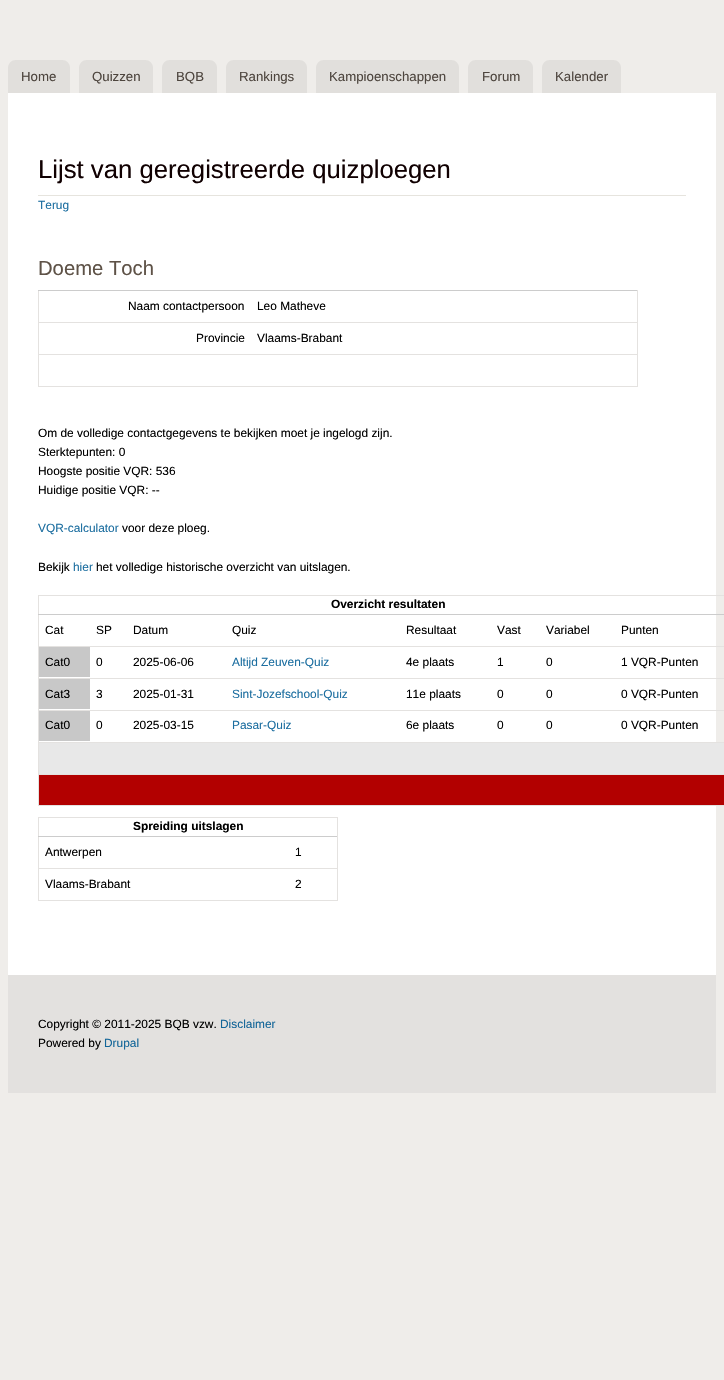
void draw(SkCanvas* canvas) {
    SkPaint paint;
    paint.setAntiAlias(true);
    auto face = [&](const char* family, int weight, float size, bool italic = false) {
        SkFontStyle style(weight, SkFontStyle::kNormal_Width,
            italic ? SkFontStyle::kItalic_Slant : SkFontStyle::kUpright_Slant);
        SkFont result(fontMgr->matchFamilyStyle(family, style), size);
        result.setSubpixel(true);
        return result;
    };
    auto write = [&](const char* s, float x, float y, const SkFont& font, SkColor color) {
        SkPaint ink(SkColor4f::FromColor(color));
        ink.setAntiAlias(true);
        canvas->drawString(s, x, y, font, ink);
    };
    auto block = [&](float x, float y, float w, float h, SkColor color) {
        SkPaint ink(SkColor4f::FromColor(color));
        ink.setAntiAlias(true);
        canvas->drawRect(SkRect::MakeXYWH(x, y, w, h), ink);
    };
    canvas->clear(SkColorSetRGB(239, 237, 234));
    paint.setColor(SkColorSetRGB(225, 223, 220));
    canvas->drawPath(SkPathBuilder().moveTo(16, 60).lineTo(62, 60).cubicTo(66.5f, 60, 70, 63.5f, 70, 68).lineTo(70, 93).lineTo(8, 93).lineTo(8, 68).cubicTo(8, 63.5f, 11.5f, 60, 16, 60).close().detach(), paint);
    auto kFont1 = face("Liberation Sans", 400, 13.25f);
    write("Home", 21, 81, kFont1, SkColorSetRGB(77, 69, 62));
    canvas->drawPath(SkPathBuilder().moveTo(87, 60).lineTo(145, 60).cubicTo(149.5f, 60, 153, 63.5f, 153, 68).lineTo(153, 93).lineTo(79, 93).lineTo(79, 68).cubicTo(79, 63.5f, 82.5f, 60, 87, 60).close().detach(), paint);
    write("Quizzen", 92, 81, kFont1, SkColorSetRGB(77, 69, 62));
    canvas->drawPath(SkPathBuilder().moveTo(170, 60).lineTo(209, 60).cubicTo(213.5f, 60, 217, 63.5f, 217, 68).lineTo(217, 93).lineTo(162, 93).lineTo(162, 68).cubicTo(162, 63.5f, 165.5f, 60, 170, 60).close().detach(), paint);
    write("BQB", 176, 81, kFont1, SkColorSetRGB(77, 69, 62));
    canvas->drawPath(SkPathBuilder().moveTo(234, 60).lineTo(299, 60).cubicTo(303.5f, 60, 307, 63.5f, 307, 68).lineTo(307, 93).lineTo(226, 93).lineTo(226, 68).cubicTo(226, 63.5f, 229.5f, 60, 234, 60).close().detach(), paint);
    write("Rankings", 239, 81, kFont1, SkColorSetRGB(77, 69, 62));
    canvas->drawPath(SkPathBuilder().moveTo(324, 60).lineTo(451, 60).cubicTo(455.5f, 60, 459, 63.5f, 459, 68).lineTo(459, 93).lineTo(316, 93).lineTo(316, 68).cubicTo(316, 63.5f, 319.5f, 60, 324, 60).close().detach(), paint);
    write("Kampioenschappen", 329, 81, kFont1, SkColorSetRGB(77, 69, 62));
    canvas->drawPath(SkPathBuilder().moveTo(476, 60).lineTo(525, 60).cubicTo(529.5f, 60, 533, 63.5f, 533, 68).lineTo(533, 93).lineTo(468, 93).lineTo(468, 68).cubicTo(468, 63.5f, 471.5f, 60, 476, 60).close().detach(), paint);
    write("Forum", 482, 81, kFont1, SkColorSetRGB(77, 69, 62));
    canvas->drawPath(SkPathBuilder().moveTo(550, 60).lineTo(613, 60).cubicTo(617.5f, 60, 621, 63.5f, 621, 68).lineTo(621, 93).lineTo(542, 93).lineTo(542, 68).cubicTo(542, 63.5f, 545.5f, 60, 550, 60).close().detach(), paint);
    write("Kalender", 555, 81, kFont1, SkColorSetRGB(77, 69, 62));
    block(8, 93, 708, 882, SK_ColorWHITE);
    block(38, 195, 648, 1, SkColorSetRGB(230, 228, 222));
    auto kFont2 = face("Liberation Sans", 400, 25.7f);
    write("Lijst van geregistreerde quizploegen", 38, 178, kFont2, SkColorSetRGB(16, 0, 1));
    auto kFont3 = face("Liberation Sans", 400, 11.9f);
    write("Terug", 38, 209, kFont3, SkColorSetRGB(28, 110, 160));
    auto kFont4 = face("Liberation Sans", 400, 20.25f);
    write("Doeme Toch", 38, 275, kFont4, SkColorSetRGB(94, 82, 71));
    block(637, 323, 1, 64, SkColorSetRGB(228, 226, 224));
    block(38, 290, 1, 97, SkColorSetRGB(228, 226, 224));
    block(38, 290, 600, 1, SkColorSetRGB(204, 204, 204));
    write("Naam contactpersoon", 128, 310, kFont3, SK_ColorBLACK);
    block(637, 290, 1, 33, SkColorSetRGB(228, 226, 224));
    block(38, 322, 600, 1, SkColorSetRGB(228, 226, 224));
    write("Leo Matheve", 257, 310, kFont3, SK_ColorBLACK);
    write("Provincie", 196, 342, kFont3, SK_ColorBLACK);
    block(38, 354, 600, 1, SkColorSetRGB(228, 226, 224));
    write("Vlaams-Brabant", 257, 342, kFont3, SK_ColorBLACK);
    block(38, 386, 600, 1, SkColorSetRGB(228, 226, 224));
    write("Om de volledige contactgegevens te bekijken moet je ingelogd zijn.", 38, 437, kFont3, SK_ColorBLACK);
    write("Sterktepunten: 0", 38, 456, kFont3, SK_ColorBLACK);
    write("Hoogste positie VQR: 536", 38, 475, kFont3, SK_ColorBLACK);
    write("Huidige positie VQR: --", 38, 494, kFont3, SK_ColorBLACK);
    write("VQR-calculator", 38, 532, kFont3, SkColorSetRGB(28, 110, 160));
    write("voor deze ploeg.", 122, 532, kFont3, SK_ColorBLACK);
    write("Bekijk", 38, 571, kFont3, SK_ColorBLACK);
    write("hier", 73, 571, kFont3, SkColorSetRGB(28, 110, 160));
    write("het volledige historische overzicht van uitslagen.", 96, 571, kFont3, SK_ColorBLACK);
    block(38, 595, 686, 1, SkColorSetRGB(228, 226, 224));
    block(38, 595, 1, 210, SkColorSetRGB(228, 226, 224));
    auto kFont5 = face("Liberation Sans", 700, 11.9f);
    write("Overzicht resultaten", 331, 608, kFont5, SK_ColorBLACK);
    block(38, 614, 686, 1, SkColorSetRGB(204, 204, 204));
    write("Cat", 45, 634, kFont3, SK_ColorBLACK);
    write("SP", 96, 634, kFont3, SK_ColorBLACK);
    write("Datum", 133, 634, kFont3, SK_ColorBLACK);
    write("Quiz", 232, 634, kFont3, SK_ColorBLACK);
    write("Resultaat", 406, 634, kFont3, SK_ColorBLACK);
    write("Vast", 497, 634, kFont3, SK_ColorBLACK);
    write("Variabel", 546, 634, kFont3, SK_ColorBLACK);
    block(38, 646, 686, 1, SkColorSetRGB(228, 226, 224));
    write("Punten", 621, 634, kFont3, SK_ColorBLACK);
    block(39, 647, 51, 30, SkColorSetRGB(200, 200, 200));
    write("Cat0", 45, 666, kFont3, SK_ColorBLACK);
    write("0", 96, 666, kFont3, SK_ColorBLACK);
    write("2025-06-06", 133, 666, kFont3, SK_ColorBLACK);
    write("Altijd Zeuven-Quiz", 232, 666, kFont3, SkColorSetRGB(28, 110, 160));
    write("4e plaats", 406, 666, kFont3, SK_ColorBLACK);
    write("1", 497, 666, kFont3, SK_ColorBLACK);
    write("0", 546, 666, kFont3, SK_ColorBLACK);
    block(38, 678, 686, 1, SkColorSetRGB(228, 226, 224));
    write("1 VQR-Punten", 621, 666, kFont3, SK_ColorBLACK);
    block(39, 679, 51, 30, SkColorSetRGB(200, 200, 200));
    write("Cat3", 45, 698, kFont3, SK_ColorBLACK);
    write("3", 96, 698, kFont3, SK_ColorBLACK);
    write("2025-01-31", 133, 698, kFont3, SK_ColorBLACK);
    write("Sint-Jozefschool-Quiz", 232, 698, kFont3, SkColorSetRGB(28, 110, 160));
    write("11e plaats", 406, 698, kFont3, SK_ColorBLACK);
    write("0", 497, 698, kFont3, SK_ColorBLACK);
    write("0", 546, 698, kFont3, SK_ColorBLACK);
    block(38, 710, 686, 1, SkColorSetRGB(228, 226, 224));
    write("0 VQR-Punten", 621, 698, kFont3, SK_ColorBLACK);
    block(39, 711, 51, 30, SkColorSetRGB(200, 200, 200));
    write("Cat0", 45, 729, kFont3, SK_ColorBLACK);
    write("0", 96, 729, kFont3, SK_ColorBLACK);
    write("2025-03-15", 133, 729, kFont3, SK_ColorBLACK);
    write("Pasar-Quiz", 232, 729, kFont3, SkColorSetRGB(28, 110, 160));
    write("6e plaats", 406, 729, kFont3, SK_ColorBLACK);
    write("0", 497, 729, kFont3, SK_ColorBLACK);
    write("0", 546, 729, kFont3, SK_ColorBLACK);
    block(38, 742, 686, 1, SkColorSetRGB(228, 226, 224));
    write("0 VQR-Punten", 621, 729, kFont3, SK_ColorBLACK);
    block(39, 743, 685, 31, SkColorSetRGB(232, 232, 232));
    block(38, 774, 686, 1, SkColorSetRGB(228, 226, 224));
    block(39, 775, 685, 30, SkColorSetRGB(178, 0, 0));
    block(38, 805, 686, 1, SkColorSetRGB(228, 226, 224));
    block(38, 817, 300, 1, SkColorSetRGB(228, 226, 224));
    block(337, 817, 1, 84, SkColorSetRGB(228, 226, 224));
    block(38, 817, 1, 84, SkColorSetRGB(228, 226, 224));
    write("Spreiding uitslagen", 133, 830, kFont5, SK_ColorBLACK);
    block(38, 836, 300, 1, SkColorSetRGB(204, 204, 204));
    write("Antwerpen", 45, 856, kFont3, SK_ColorBLACK);
    block(337, 836, 1, 1, SkColorSetRGB(228, 226, 224));
    block(38, 868, 300, 1, SkColorSetRGB(228, 226, 224));
    write("1", 295, 856, kFont3, SK_ColorBLACK);
    write("Vlaams-Brabant", 45, 888, kFont3, SK_ColorBLACK);
    block(38, 900, 300, 1, SkColorSetRGB(228, 226, 224));
    write("2", 295, 888, kFont3, SK_ColorBLACK);
    block(8, 975, 708, 118, SkColorSetRGB(227, 225, 223));
    write("Copyright © 2011-2025 BQB vzw.", 38, 1028, kFont3, SK_ColorBLACK);
    write("Disclaimer", 220, 1028, kFont3, SkColorSetRGB(18, 101, 152));
    write("Powered by", 38, 1047, kFont3, SK_ColorBLACK);
    write("Drupal", 104, 1047, kFont3, SkColorSetRGB(18, 101, 152));
}
